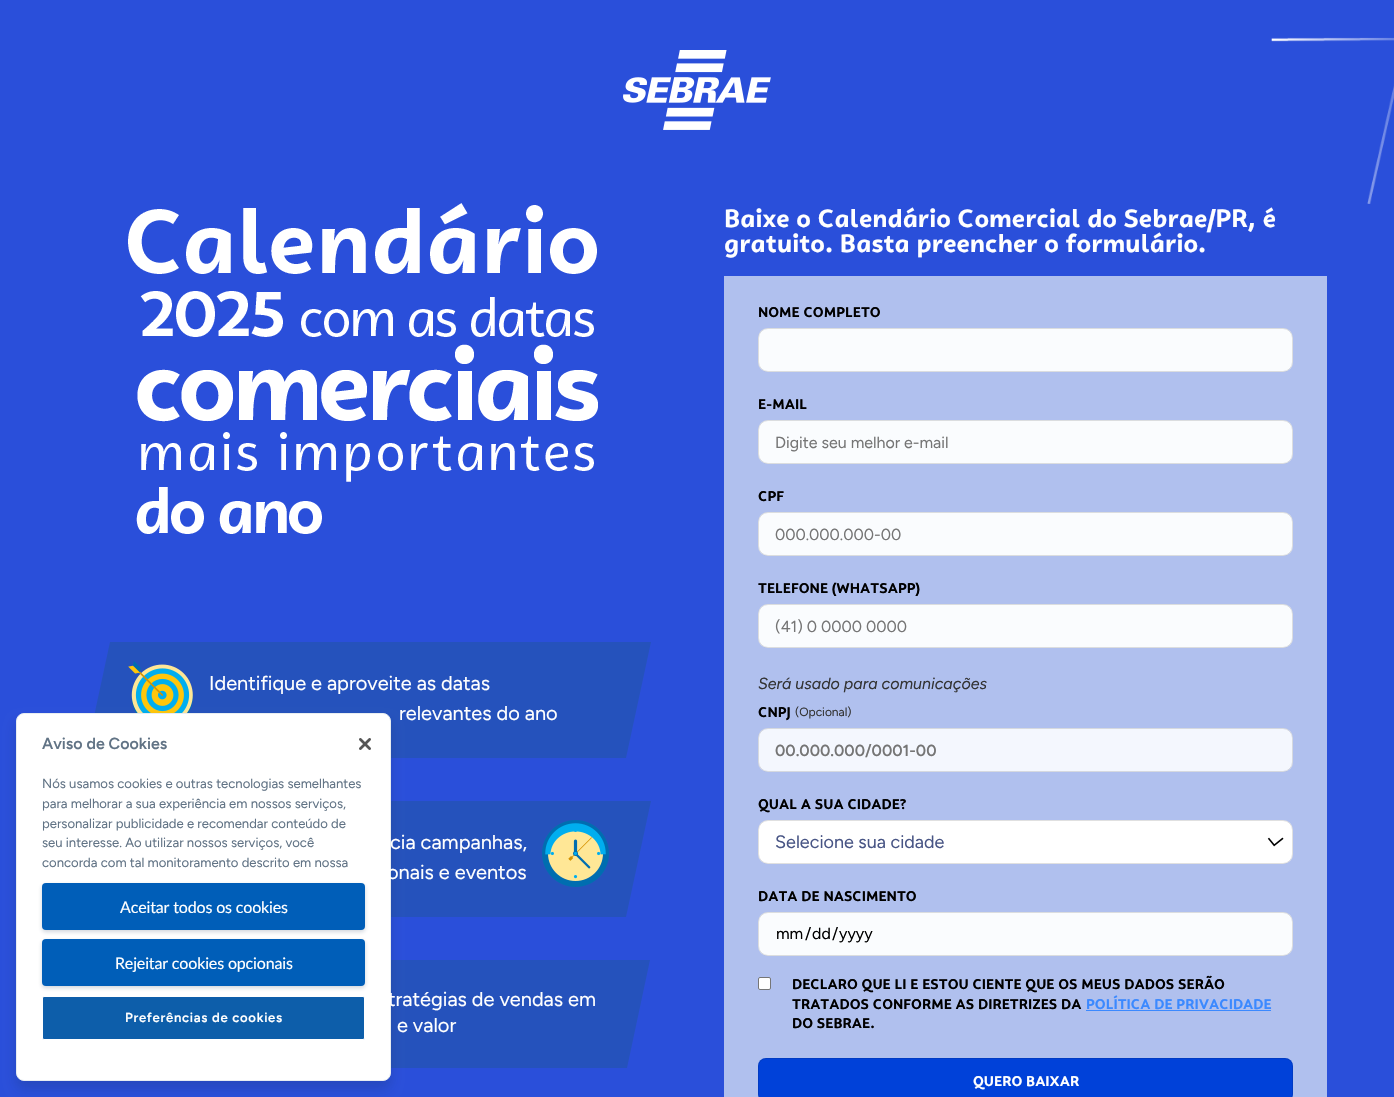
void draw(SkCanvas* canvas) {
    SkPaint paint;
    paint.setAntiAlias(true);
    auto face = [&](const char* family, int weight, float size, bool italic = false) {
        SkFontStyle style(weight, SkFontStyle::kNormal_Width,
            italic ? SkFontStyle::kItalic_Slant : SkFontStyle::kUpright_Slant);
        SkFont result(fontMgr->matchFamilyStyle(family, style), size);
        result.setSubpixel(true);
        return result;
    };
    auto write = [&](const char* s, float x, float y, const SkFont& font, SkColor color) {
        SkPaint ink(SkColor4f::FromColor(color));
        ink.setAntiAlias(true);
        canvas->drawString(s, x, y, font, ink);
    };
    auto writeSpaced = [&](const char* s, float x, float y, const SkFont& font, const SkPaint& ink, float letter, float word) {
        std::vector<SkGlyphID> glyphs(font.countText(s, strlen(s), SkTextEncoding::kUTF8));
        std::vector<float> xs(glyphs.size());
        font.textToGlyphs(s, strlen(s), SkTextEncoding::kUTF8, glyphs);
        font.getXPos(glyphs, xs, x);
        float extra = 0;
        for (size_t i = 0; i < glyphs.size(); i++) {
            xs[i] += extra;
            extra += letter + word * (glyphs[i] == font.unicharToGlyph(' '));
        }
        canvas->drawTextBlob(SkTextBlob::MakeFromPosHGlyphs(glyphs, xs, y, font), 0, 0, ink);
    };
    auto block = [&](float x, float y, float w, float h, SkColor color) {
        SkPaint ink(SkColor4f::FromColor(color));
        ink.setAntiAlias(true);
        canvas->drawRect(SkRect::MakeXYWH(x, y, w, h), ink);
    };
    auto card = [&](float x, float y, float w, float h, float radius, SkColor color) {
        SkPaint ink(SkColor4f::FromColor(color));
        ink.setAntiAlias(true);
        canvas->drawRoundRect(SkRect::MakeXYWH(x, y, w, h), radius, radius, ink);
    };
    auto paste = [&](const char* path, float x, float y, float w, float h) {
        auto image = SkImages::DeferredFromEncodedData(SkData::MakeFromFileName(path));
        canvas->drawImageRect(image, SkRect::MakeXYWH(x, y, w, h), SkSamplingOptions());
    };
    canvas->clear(SkColorSetRGB(42, 79, 218));
    paint.setColor(SkColorSetRGB(37, 82, 188));
    canvas->drawPath(SkPathBuilder().moveTo(110, 642).lineTo(651, 642).lineTo(626, 758).lineTo(85, 758).close().detach(), paint);
    paste("pic4.png", 128, 661, 65, 52);
    canvas->drawPath(SkPathBuilder().moveTo(110, 801).lineTo(651, 801).lineTo(626, 917).lineTo(85, 917).close().detach(), paint);
    canvas->drawPath(SkPathBuilder().moveTo(109, 960).lineTo(650, 960).lineTo(627, 1068).lineTo(86, 1068).close().detach(), paint);
    paint.setColor(SkColorSetARGB(51, 20, 46, 82));
    paint.setMaskFilter(SkMaskFilter::MakeBlur(kNormal_SkBlurStyle, 6));
    canvas->drawRoundRect(SkRect::MakeXYWH(16, 721, 375, 368), 8, 8, paint);
    paint.setMaskFilter(nullptr);
    paint.setColor(SK_ColorWHITE);
    canvas->drawRoundRect(SkRect::MakeXYWH(16.5f, 713.5f, 374, 367), 7.5f, 7.5f, paint);
    paint.setStyle(SkPaint::kStroke_Style);
    paint.setStrokeWidth(1);
    paint.setColor(SkColorSetRGB(232, 237, 241));
    canvas->drawRoundRect(SkRect::MakeXYWH(16.5f, 713.5f, 374, 367), 7.5f, 7.5f, paint);
    auto kFont1 = face("Figtree", 600, 16);
    write("Aviso de Cookies", 42, 749, kFont1, SkColorSetRGB(97, 115, 133));
    auto kFont2 = face("Figtree", 400, 13.1f);
    write("Nós usamos cookies e outras tecnologias semelhantes", 42, 788, kFont2, SkColorSetRGB(97, 115, 133));
    write("para melhorar a sua experiência em nossos serviços,", 42, 808, kFont2, SkColorSetRGB(97, 115, 133));
    write("personalizar publicidade e recomendar conteúdo de", 42, 828, kFont2, SkColorSetRGB(97, 115, 133));
    write("seu interesse. Ao utilizar nossos serviços, você", 42, 847, kFont2, SkColorSetRGB(97, 115, 133));
    write("concorda com tal monitoramento descrito em nossa", 42, 867, kFont2, SkColorSetRGB(97, 115, 133));
    paste("pic1.png", 359, 738, 12, 12);
    paint.setStyle(SkPaint::kFill_Style);
    paint.setColor(SkColorSetARGB(51, 20, 46, 82));
    paint.setMaskFilter(SkMaskFilter::MakeBlur(kNormal_SkBlurStyle, 2));
    canvas->drawRoundRect(SkRect::MakeXYWH(42, 885, 323, 47), 4, 4, paint);
    paint.setMaskFilter(nullptr);
    card(42, 883, 323, 47, 4, SkColorSetRGB(0, 94, 184));
    auto kFont3 = face("Lato", 400, 16);
    paint.setColor(SK_ColorWHITE);
    writeSpaced("Aceitar todos os cookies", 120, 913, kFont3, paint, -0.15f, 0);
    paint.setColor(SkColorSetARGB(51, 20, 46, 82));
    paint.setMaskFilter(SkMaskFilter::MakeBlur(kNormal_SkBlurStyle, 2));
    canvas->drawRoundRect(SkRect::MakeXYWH(42, 941, 323, 47), 4, 4, paint);
    paint.setMaskFilter(nullptr);
    card(42, 939, 323, 47, 4, SkColorSetRGB(0, 94, 184));
    paint.setColor(SK_ColorWHITE);
    writeSpaced("Rejeitar cookies opcionais", 115, 969, kFont3, paint, -0.15f, 0);
    paint.setColor(SkColorSetRGB(13, 94, 170));
    canvas->drawRoundRect(SkRect::MakeXYWH(42.5f, 996.5f, 322, 43), 1.5f, 1.5f, paint);
    paint.setStyle(SkPaint::kStroke_Style);
    paint.setColor(SK_ColorWHITE);
    canvas->drawRoundRect(SkRect::MakeXYWH(42.5f, 996.5f, 322, 43), 1.5f, 1.5f, paint);
    auto kFont4 = face("Figtree", 600, 13.1f);
    paint.setStyle(SkPaint::kFill_Style);
    writeSpaced("Preferências de cookies", 125, 1022, kFont4, paint, 0.7f, 0);
    paste("pic2.png", 623, 50, 148, 80);
    paste("pic3.png", 128, 203, 470, 331);
    auto kFont5 = face("Figtree", 400, 20);
    write("Identifique e aproveite as datas", 209, 690, kFont5, SK_ColorWHITE);
    write("relevantes do ano", 399, 720, kFont5, SK_ColorWHITE);
    write("cia campanhas,", 390, 849, kFont5, SK_ColorWHITE);
    write("onais e eventos", 387, 879, kFont5, SK_ColorWHITE);
    paste("pic5.png", 542, 820, 67, 67);
    write("tratégias de vendas em", 388, 1006, kFont5, SK_ColorWHITE);
    write("e valor", 397, 1032, kFont5, SK_ColorWHITE);
    paste("pic6.png", 1271, 37, 123, 167);
    auto kFont6 = face("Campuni", 700, 25);
    write("Baixe o Calendário Comercial do Sebrae/PR, é", 724, 227, kFont6, SK_ColorWHITE);
    write("gratuito. Basta preencher o formulário.", 724, 252, kFont6, SK_ColorWHITE);
    block(724, 276, 603, 821, SkColorSetRGB(176, 192, 238));
    auto kFont7 = face("Campuni", 700, 14);
    write("NOME COMPLETO", 758, 317, kFont7, SK_ColorBLACK);
    card(758, 328, 535, 44, 10, SkColorSetRGB(250, 252, 254));
    paint.setStyle(SkPaint::kStroke_Style);
    paint.setColor(SkColorSetARGB(31, 0, 0, 0));
    canvas->drawRoundRect(SkRect::MakeXYWH(758.5f, 328.5f, 534, 43), 9.5f, 9.5f, paint);
    write("E-MAIL", 758, 409, kFont7, SK_ColorBLACK);
    card(758, 420, 535, 44, 10, SkColorSetRGB(250, 252, 254));
    canvas->drawRoundRect(SkRect::MakeXYWH(758.5f, 420.5f, 534, 43), 9.5f, 9.5f, paint);
    auto kFont8 = face("Figtree", 400, 16);
    write("Digite seu melhor e-mail", 775, 448, kFont8, SkColorSetRGB(117, 117, 117));
    write("CPF", 758, 501, kFont7, SK_ColorBLACK);
    card(758, 512, 535, 44, 10, SkColorSetRGB(250, 252, 254));
    canvas->drawRoundRect(SkRect::MakeXYWH(758.5f, 512.5f, 534, 43), 9.5f, 9.5f, paint);
    write("000.000.000-00", 775, 540, kFont8, SkColorSetRGB(117, 117, 117));
    write("TELEFONE (WHATSAPP)", 758, 593, kFont7, SK_ColorBLACK);
    card(758, 604, 535, 44, 10, SkColorSetRGB(250, 252, 254));
    canvas->drawRoundRect(SkRect::MakeXYWH(758.5f, 604.5f, 534, 43), 9.5f, 9.5f, paint);
    write("(41) 0 0000 0000", 775, 632, kFont8, SkColorSetRGB(117, 117, 117));
    auto kFont9 = face("Figtree", 400, 16, true);
    write("Será usado para comunicações", 758, 689, kFont9, SkColorSetRGB(51, 51, 51));
    write("CNPJ", 758, 717, kFont7, SK_ColorBLACK);
    auto kFont10 = face("Figtree", 400, 12);
    write("(Opcional)", 795, 716, kFont10, SkColorSetRGB(51, 51, 51));
    card(758, 728, 535, 44, 10, SkColorSetRGB(244, 247, 254));
    canvas->drawRoundRect(SkRect::MakeXYWH(758.5f, 728.5f, 534, 43), 9.5f, 9.5f, paint);
    write("00.000.000/0001-00", 775, 756, kFont1, SkColorSetRGB(117, 117, 117));
    write("QUAL A SUA CIDADE?", 758, 809, kFont7, SK_ColorBLACK);
    card(758, 820, 535, 44, 10, SK_ColorWHITE);
    paste("pic7.png", 1267, 837, 17, 10);
    canvas->drawRoundRect(SkRect::MakeXYWH(758.5f, 820.5f, 534, 43), 9.5f, 9.5f, paint);
    auto kFont11 = face("Figtree", 400, 18);
    write("Selecione sua cidade", 775, 848, kFont11, SkColorSetRGB(72, 85, 133));
    write("DATA DE NASCIMENTO", 758, 901, kFont7, SK_ColorBLACK);
    card(758, 912, 535, 44, 10, SkColorSetRGB(250, 252, 254));
    canvas->drawRoundRect(SkRect::MakeXYWH(758.5f, 912.5f, 534, 43), 9.5f, 9.5f, paint);
    write("mm", 776, 939, kFont8, SK_ColorBLACK);
    write("/", 805, 939, kFont8, SK_ColorBLACK);
    write("dd", 812, 939, kFont8, SK_ColorBLACK);
    write("/", 832, 939, kFont8, SK_ColorBLACK);
    write("yyyy", 839, 939, kFont8, SK_ColorBLACK);
    paint.setStyle(SkPaint::kFill_Style);
    paint.setColor(SK_ColorWHITE);
    canvas->drawRoundRect(SkRect::MakeXYWH(758.5f, 977.5f, 12, 12), 1.5f, 1.5f, paint);
    paint.setStyle(SkPaint::kStroke_Style);
    paint.setColor(SkColorSetRGB(118, 118, 118));
    canvas->drawRoundRect(SkRect::MakeXYWH(758.5f, 977.5f, 12, 12), 1.5f, 1.5f, paint);
    write("DECLARO QUE LI E ESTOU CIENTE QUE OS MEUS DADOS SERÃO", 792, 989, kFont7, SK_ColorBLACK);
    write("TRATADOS CONFORME AS DIRETRIZES DA", 792, 1009, kFont7, SK_ColorBLACK);
    write("POLÍTICA DE PRIVACIDADE", 1086, 1009, kFont7, SkColorSetRGB(59, 137, 255));
    block(1086, 1010, 185, 1, SkColorSetRGB(59, 137, 255));
    write("DO SEBRAE.", 792, 1028, kFont7, SK_ColorBLACK);
    card(758, 1058, 535, 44, 8, SkColorSetRGB(0, 65, 217));
    paint.setColor(SkColorSetARGB(26, 0, 0, 0));
    canvas->drawRoundRect(SkRect::MakeXYWH(758.5f, 1058.5f, 534, 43), 7.5f, 7.5f, paint);
    write("QUERO BAIXAR", 973, 1086, kFont7, SK_ColorWHITE);
}
